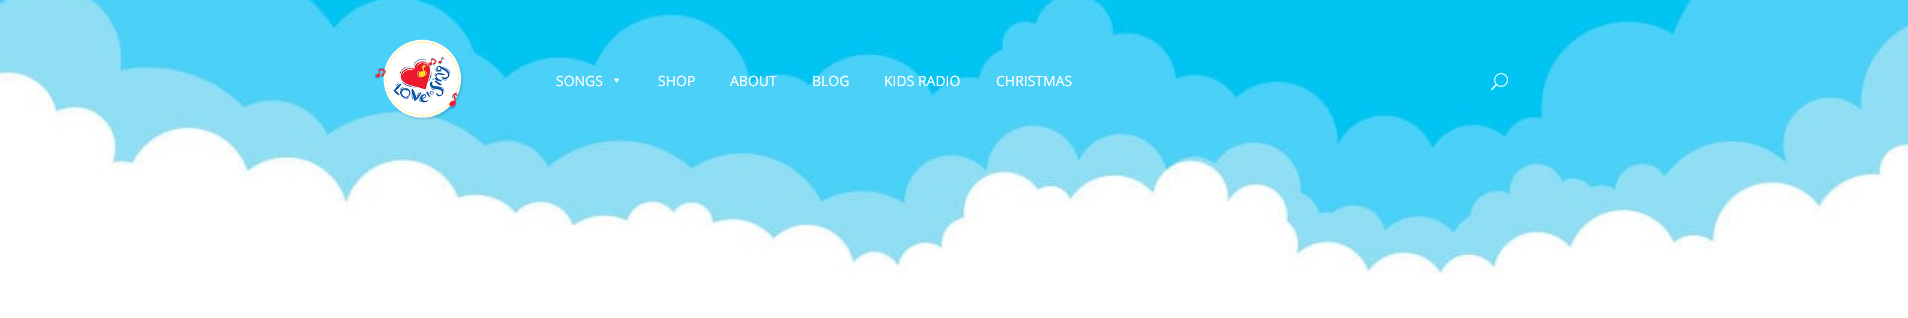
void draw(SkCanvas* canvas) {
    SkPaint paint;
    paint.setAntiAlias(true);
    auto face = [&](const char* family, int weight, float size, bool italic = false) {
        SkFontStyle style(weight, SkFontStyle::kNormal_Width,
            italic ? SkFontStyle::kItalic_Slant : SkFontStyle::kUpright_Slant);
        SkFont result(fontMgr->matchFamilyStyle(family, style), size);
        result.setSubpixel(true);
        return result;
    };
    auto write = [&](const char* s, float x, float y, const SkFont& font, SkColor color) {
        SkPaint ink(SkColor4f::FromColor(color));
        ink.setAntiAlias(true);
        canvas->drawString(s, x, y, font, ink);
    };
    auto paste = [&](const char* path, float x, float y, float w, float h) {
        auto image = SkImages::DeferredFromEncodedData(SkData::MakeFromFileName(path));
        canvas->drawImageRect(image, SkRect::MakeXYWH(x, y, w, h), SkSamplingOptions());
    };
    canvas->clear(SK_ColorWHITE);
    paste("pic1.png", 0, 0, 1908, 274);
    paste("pic2.png", 375, 39, 89, 82);
    auto kFont1 = face("Open Sans", 400, 14);
    write("SONGS", 556, 86, kFont1, SK_ColorWHITE);
    paint.setColor(SK_ColorWHITE);
    canvas->drawPath(SkPathBuilder().moveTo(619.5f, 78.5f).lineTo(616.5f, 83).lineTo(614, 78.5f).close().detach(), paint);
    write("SHOP", 658, 86, kFont1, SK_ColorWHITE);
    write("ABOUT", 730, 86, kFont1, SK_ColorWHITE);
    write("BLOG", 812, 86, kFont1, SK_ColorWHITE);
    write("KIDS RADIO", 884, 86, kFont1, SK_ColorWHITE);
    write("CHRISTMAS", 996, 86, kFont1, SK_ColorWHITE);
    paste("pic3.png", 1491, 73, 17, 18);
}
